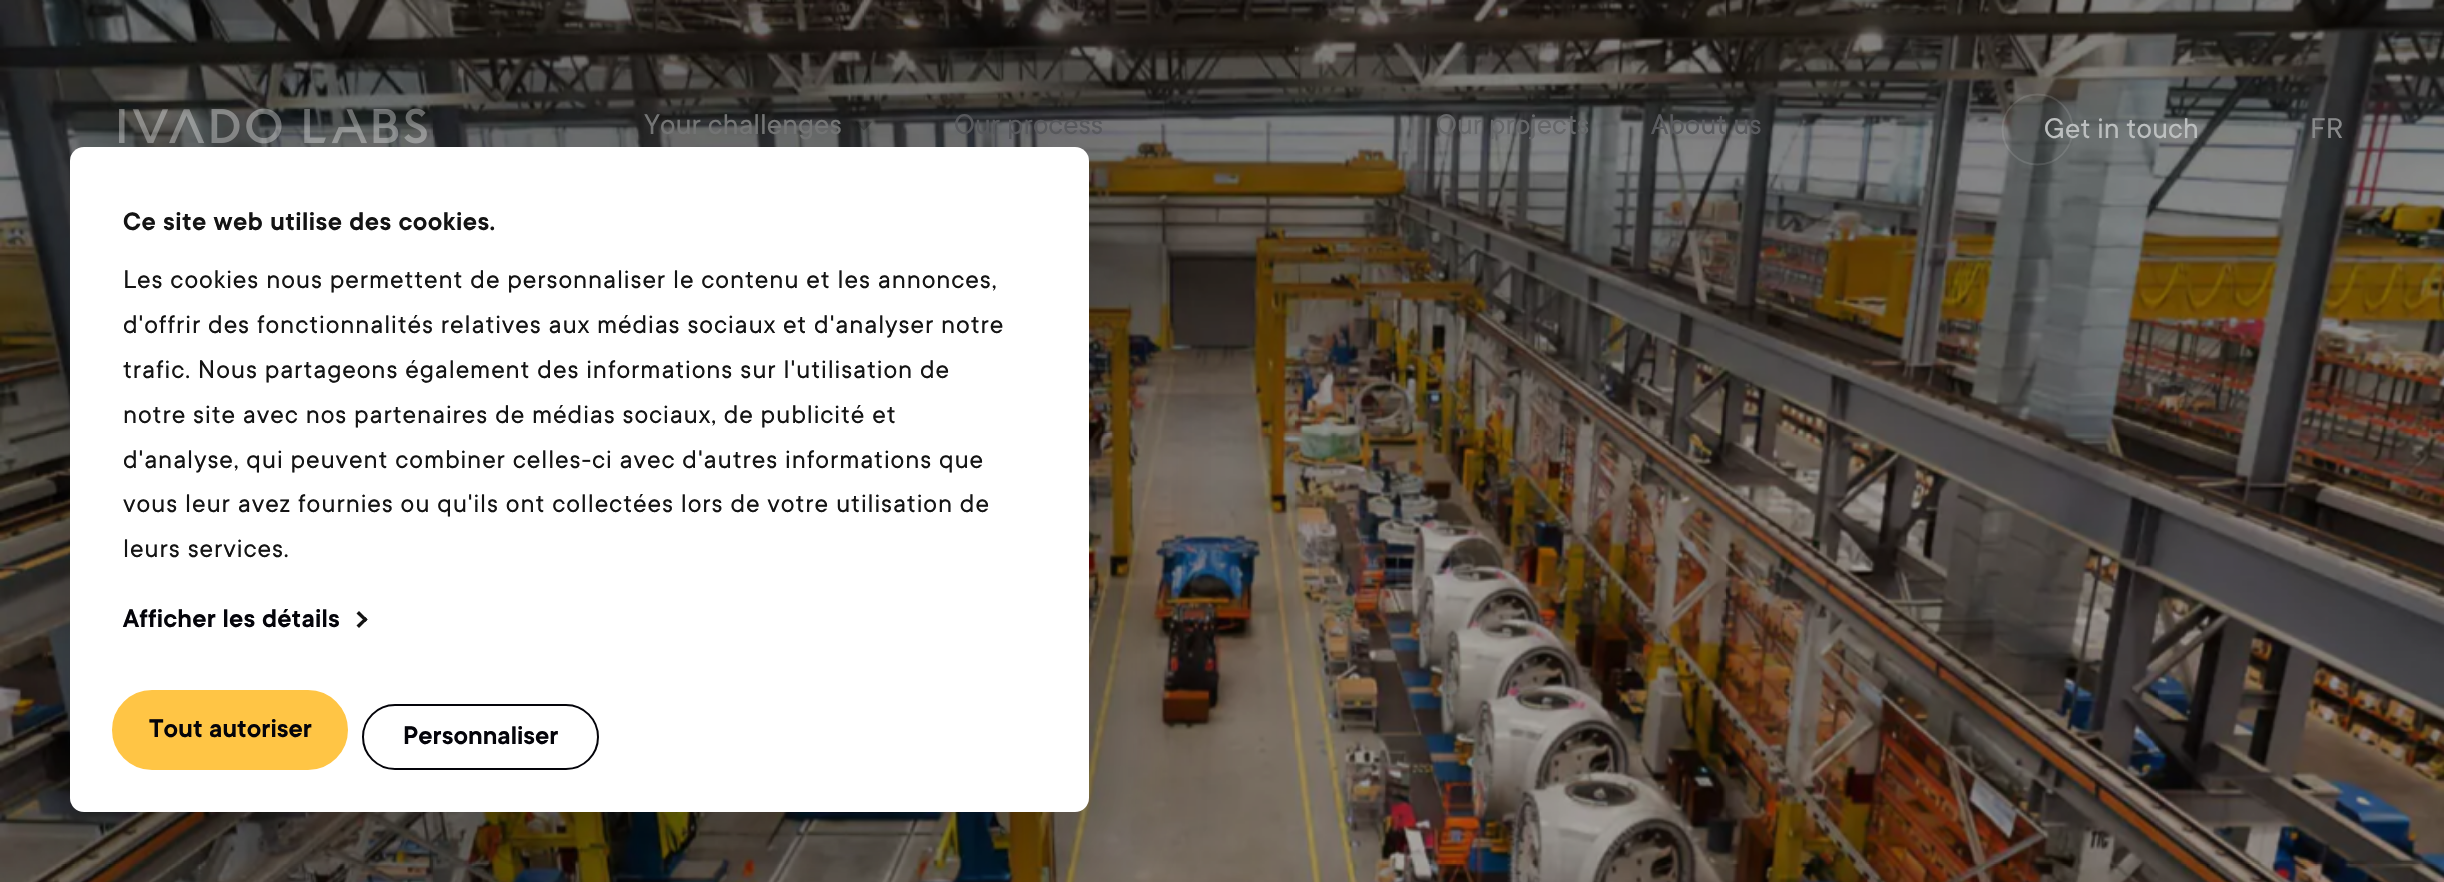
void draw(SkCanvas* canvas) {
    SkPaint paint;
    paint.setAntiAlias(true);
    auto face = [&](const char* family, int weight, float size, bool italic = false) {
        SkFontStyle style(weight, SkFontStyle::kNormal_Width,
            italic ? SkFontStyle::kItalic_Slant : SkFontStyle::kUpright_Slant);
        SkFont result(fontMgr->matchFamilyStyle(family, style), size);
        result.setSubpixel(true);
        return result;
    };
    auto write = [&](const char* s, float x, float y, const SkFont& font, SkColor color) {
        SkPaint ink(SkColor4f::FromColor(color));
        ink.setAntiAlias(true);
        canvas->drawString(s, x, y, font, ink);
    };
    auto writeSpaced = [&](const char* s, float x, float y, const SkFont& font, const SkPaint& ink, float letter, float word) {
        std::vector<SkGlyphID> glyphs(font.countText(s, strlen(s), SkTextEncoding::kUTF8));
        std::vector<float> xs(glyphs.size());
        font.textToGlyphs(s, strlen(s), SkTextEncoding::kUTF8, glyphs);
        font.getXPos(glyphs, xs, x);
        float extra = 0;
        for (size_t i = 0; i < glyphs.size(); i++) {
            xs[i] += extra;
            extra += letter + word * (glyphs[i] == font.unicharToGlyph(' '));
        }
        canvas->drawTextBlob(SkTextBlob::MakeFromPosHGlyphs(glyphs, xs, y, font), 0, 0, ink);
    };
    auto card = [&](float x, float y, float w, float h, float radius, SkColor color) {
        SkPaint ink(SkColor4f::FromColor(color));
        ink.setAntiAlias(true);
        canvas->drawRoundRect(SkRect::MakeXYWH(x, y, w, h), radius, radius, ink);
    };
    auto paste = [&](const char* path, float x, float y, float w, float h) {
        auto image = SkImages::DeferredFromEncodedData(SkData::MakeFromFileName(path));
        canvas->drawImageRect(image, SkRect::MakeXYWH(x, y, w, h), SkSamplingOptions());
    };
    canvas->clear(SK_ColorWHITE);
    paste("pic1.png", 0, 0, 2444, 882);
    paste("pic2.png", 119, 108, 308, 36);
    auto kFont1 = face("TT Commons", 400, 31.5f);
    write("Your challenges", 644, 134, kFont1, SkColorSetRGB(120, 121, 121));
    paint.setColor(SkColorSetARGB(66, 0, 0, 0));
    canvas->drawPath(SkPathBuilder().moveTo(855, 121.5f).lineTo(872.5f, 121.5f).lineTo(864, 130.5f).close().detach(), paint);
    write("Our process", 954, 134, kFont1, SkColorSetRGB(89, 90, 94));
    write("Our projects", 1436, 134, kFont1, SkColorSetRGB(101, 102, 104));
    write("About us", 1651, 134, kFont1, SkColorSetRGB(89, 90, 94));
    paint.setStyle(SkPaint::kStroke_Style);
    paint.setStrokeWidth(1.8f);
    paint.setColor(SkColorSetARGB(28, 255, 255, 255));
    canvas->drawPath(SkPathBuilder().moveTo(2037.5f, 94.5f).cubicTo(2057, 94.5f, 2072.5f, 110, 2072.5f, 129.5f).cubicTo(2072.5f, 149, 2057, 164.5f, 2037.5f, 164.5f).cubicTo(2018.5f, 164.5f, 2002.5f, 149, 2002.5f, 129.5f).cubicTo(2002.5f, 110, 2018.5f, 94.5f, 2037.5f, 94.5f).detach(), paint);
    write("Get in touch", 2044, 138, kFont1, SkColorSetRGB(188, 191, 191));
    write("FR", 2310, 138, kFont1, SkColorSetRGB(136, 137, 138));
    paint.setStyle(SkPaint::kFill_Style);
    paint.setColor(SkColorSetARGB(77, 0, 0, 0));
    paint.setMaskFilter(SkMaskFilter::MakeBlur(kNormal_SkBlurStyle, 61));
    canvas->drawRoundRect(SkRect::MakeXYWH(70, 200, 1019, 665), 14, 14, paint);
    paint.setMaskFilter(nullptr);
    card(70, 147, 1019, 665, 14, SK_ColorWHITE);
    auto kFont2 = face("TT Commons", 600, 28);
    paint.setColor(SkColorSetRGB(20, 20, 20));
    writeSpaced("Ce site web utilise des cookies.", 123, 230, kFont2, paint, 0.45f, 0);
    auto kFont3 = face("TT Commons", 400, 28);
    writeSpaced("Les cookies nous permettent de personnaliser le contenu et les annonces,", 123, 288, kFont3, paint, 0.88f, 0);
    writeSpaced("d'offrir des fonctionnalités relatives aux médias sociaux et d'analyser notre", 123, 333, kFont3, paint, 0.88f, 0);
    writeSpaced("trafic. Nous partageons également des informations sur l'utilisation de", 123, 378, kFont3, paint, 0.88f, 0);
    writeSpaced("notre site avec nos partenaires de médias sociaux, de publicité et", 123, 423, kFont3, paint, 0.88f, 0);
    writeSpaced("d'analyse, qui peuvent combiner celles-ci avec d'autres informations que", 123, 468, kFont3, paint, 0.88f, 0);
    writeSpaced("vous leur avez fournies ou qu'ils ont collectées lors de votre utilisation de", 123, 512, kFont3, paint, 0.88f, 0);
    writeSpaced("leurs services.", 123, 557, kFont3, paint, 0.88f, 0);
    paint.setColor(SkColorSetRGB(4, 4, 10));
    writeSpaced("Afficher les détails", 123, 627, kFont2, paint, 0.2f, 0);
    paint.setColor(SkColorSetRGB(20, 20, 20));
    canvas->drawPath(SkPathBuilder().moveTo(359, 611).lineTo(367.5f, 619.5f).lineTo(365.5f, 622).lineTo(356.5f, 613.5f).close().detach(), paint);
    canvas->drawPath(SkPathBuilder().moveTo(365.5f, 617).lineTo(367.5f, 619.5f).lineTo(359, 628).lineTo(356.5f, 625.5f).close().detach(), paint);
    paint.setColor(SkColorSetRGB(255, 197, 69));
    canvas->drawRoundRect(SkRect::MakeXYWH(113, 691, 234, 78), 39, 39, paint);
    paint.setStyle(SkPaint::kStroke_Style);
    paint.setStrokeWidth(2);
    canvas->drawRoundRect(SkRect::MakeXYWH(113, 691, 234, 78), 39, 39, paint);
    write("Tout autoriser", 149, 737, kFont2, SkColorSetRGB(4, 4, 10));
    paint.setColor(SkColorSetRGB(4, 4, 10));
    canvas->drawRoundRect(SkRect::MakeXYWH(363, 705, 235, 64), 32, 32, paint);
    write("Personnaliser", 403, 744, kFont2, SkColorSetRGB(4, 4, 10));
}
